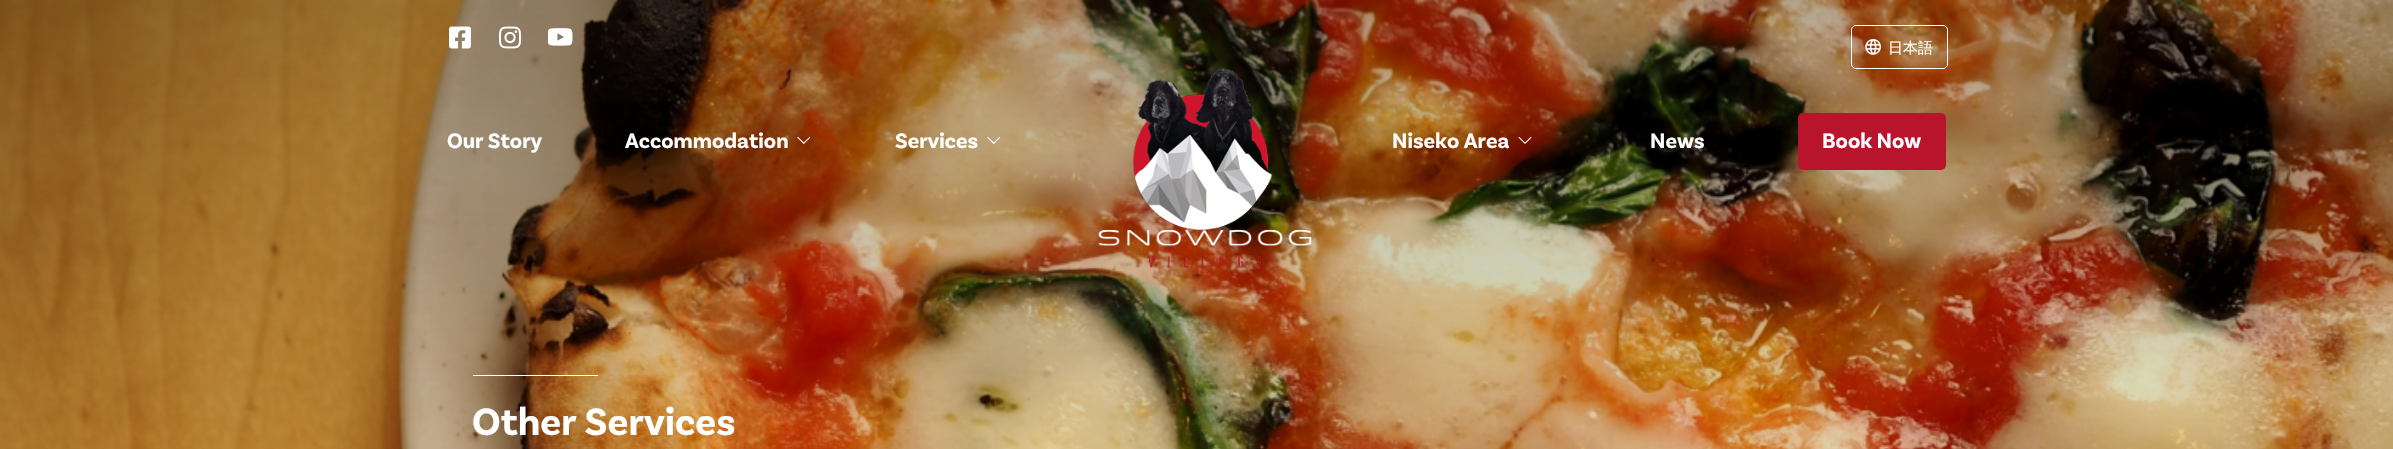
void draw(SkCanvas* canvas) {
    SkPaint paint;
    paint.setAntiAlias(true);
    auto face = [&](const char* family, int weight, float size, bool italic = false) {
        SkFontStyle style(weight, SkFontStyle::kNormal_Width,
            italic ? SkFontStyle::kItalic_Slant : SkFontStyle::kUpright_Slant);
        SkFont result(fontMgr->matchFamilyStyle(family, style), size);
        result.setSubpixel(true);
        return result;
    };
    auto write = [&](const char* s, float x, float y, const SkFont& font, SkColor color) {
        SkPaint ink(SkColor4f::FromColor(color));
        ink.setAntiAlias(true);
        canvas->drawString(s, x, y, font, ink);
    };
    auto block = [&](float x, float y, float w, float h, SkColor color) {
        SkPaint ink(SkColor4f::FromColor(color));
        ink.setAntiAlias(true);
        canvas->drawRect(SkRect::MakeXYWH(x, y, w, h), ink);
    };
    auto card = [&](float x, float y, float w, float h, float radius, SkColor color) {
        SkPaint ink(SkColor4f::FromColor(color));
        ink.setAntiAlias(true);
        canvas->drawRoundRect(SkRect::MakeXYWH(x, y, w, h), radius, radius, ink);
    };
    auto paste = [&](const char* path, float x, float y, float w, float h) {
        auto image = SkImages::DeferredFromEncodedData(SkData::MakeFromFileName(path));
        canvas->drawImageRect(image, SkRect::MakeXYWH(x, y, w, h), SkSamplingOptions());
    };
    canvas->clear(SK_ColorWHITE);
    paste("pic9.png", 0, 0, 2393, 449);
    paste("pic1.png", 449, 26, 22, 23);
    paste("pic2.png", 499, 26, 22, 23);
    paste("pic3.png", 548, 28, 25, 18);
    paint.setStyle(SkPaint::kStroke_Style);
    paint.setStrokeWidth(1);
    paint.setColor(SK_ColorWHITE);
    canvas->drawRoundRect(SkRect::MakeXYWH(1851.5f, 25.5f, 96, 43), 4.5f, 4.5f, paint);
    paste("pic4.png", 1865, 39, 16, 16);
    auto kFont1 = face("WenQuanYi Zen Hei", 500, 15);
    write("日本語", 1888, 53, kFont1, SK_ColorWHITE);
    auto kFont2 = face("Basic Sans", 700, 22);
    write("Our Story", 447, 148, kFont2, SK_ColorWHITE);
    write("Accommodation", 625, 148, kFont2, SK_ColorWHITE);
    paste("pic5.png", 797, 137, 14, 7);
    write("Services", 895, 148, kFont2, SK_ColorWHITE);
    paste("pic6.png", 987, 137, 14, 7);
    paste("pic7.png", 1098, 68, 214, 200);
    write("Niseko Area", 1392, 148, kFont2, SK_ColorWHITE);
    paste("pic8.png", 1518, 137, 14, 7);
    write("News", 1650, 148, kFont2, SK_ColorWHITE);
    card(1798, 113, 148, 57, 5, SkColorSetRGB(184, 21, 45));
    write("Book Now", 1822, 148, kFont2, SK_ColorWHITE);
    block(473, 375, 125, 1, SK_ColorWHITE);
    auto kFont3 = face("Basic Sans", 700, 40);
    write("Other Services", 472, 435, kFont3, SK_ColorWHITE);
}
